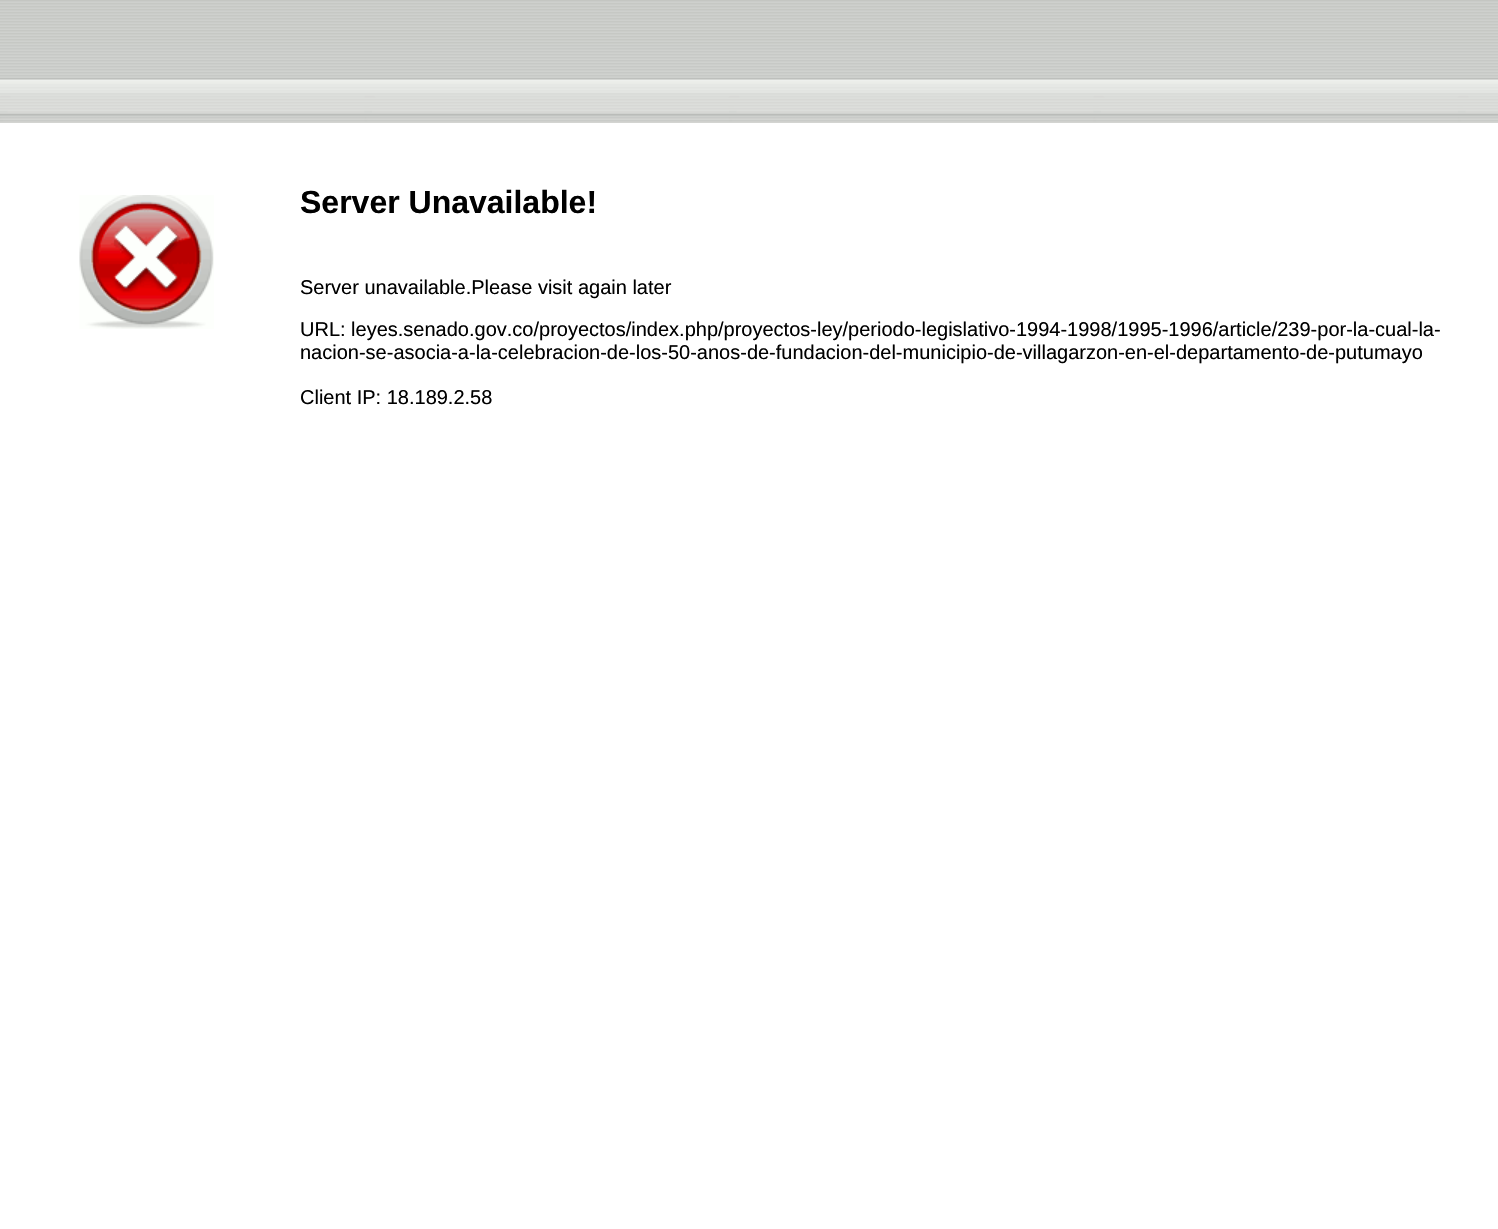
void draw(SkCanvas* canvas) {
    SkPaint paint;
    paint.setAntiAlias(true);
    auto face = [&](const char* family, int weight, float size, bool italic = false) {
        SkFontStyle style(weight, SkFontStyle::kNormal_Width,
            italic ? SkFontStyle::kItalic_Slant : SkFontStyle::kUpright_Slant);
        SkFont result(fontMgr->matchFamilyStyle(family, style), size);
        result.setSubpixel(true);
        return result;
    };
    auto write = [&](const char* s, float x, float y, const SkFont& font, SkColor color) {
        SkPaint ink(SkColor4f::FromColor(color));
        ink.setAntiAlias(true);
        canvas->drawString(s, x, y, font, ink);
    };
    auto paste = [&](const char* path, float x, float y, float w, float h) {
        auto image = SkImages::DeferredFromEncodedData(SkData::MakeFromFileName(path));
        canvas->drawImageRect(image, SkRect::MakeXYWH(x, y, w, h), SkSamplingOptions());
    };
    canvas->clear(SK_ColorWHITE);
    paste("pic1.png", 0, 0, 1498, 123);
    paste("pic2.png", 79, 195, 135, 134);
    auto kFont1 = face("Liberation Sans", 700, 32);
    write("Server Unavailable!", 300, 213, kFont1, SK_ColorBLACK);
    auto kFont2 = face("Liberation Sans", 400, 20);
    write("Server unavailable.Please visit again later", 300, 294, kFont2, SK_ColorBLACK);
    write("URL: leyes.senado.gov.co/proyectos/index.php/proyectos-ley/periodo-legislativo-1994-1998/1995-1996/article/239-por-la-cual-la-", 300, 336, kFont2, SK_ColorBLACK);
    write("nacion-se-asocia-a-la-celebracion-de-los-50-anos-de-fundacion-del-municipio-de-villagarzon-en-el-departamento-de-putumayo", 300, 359, kFont2, SK_ColorBLACK);
    write("Client IP: 18.189.2.58", 300, 404, kFont2, SK_ColorBLACK);
}
